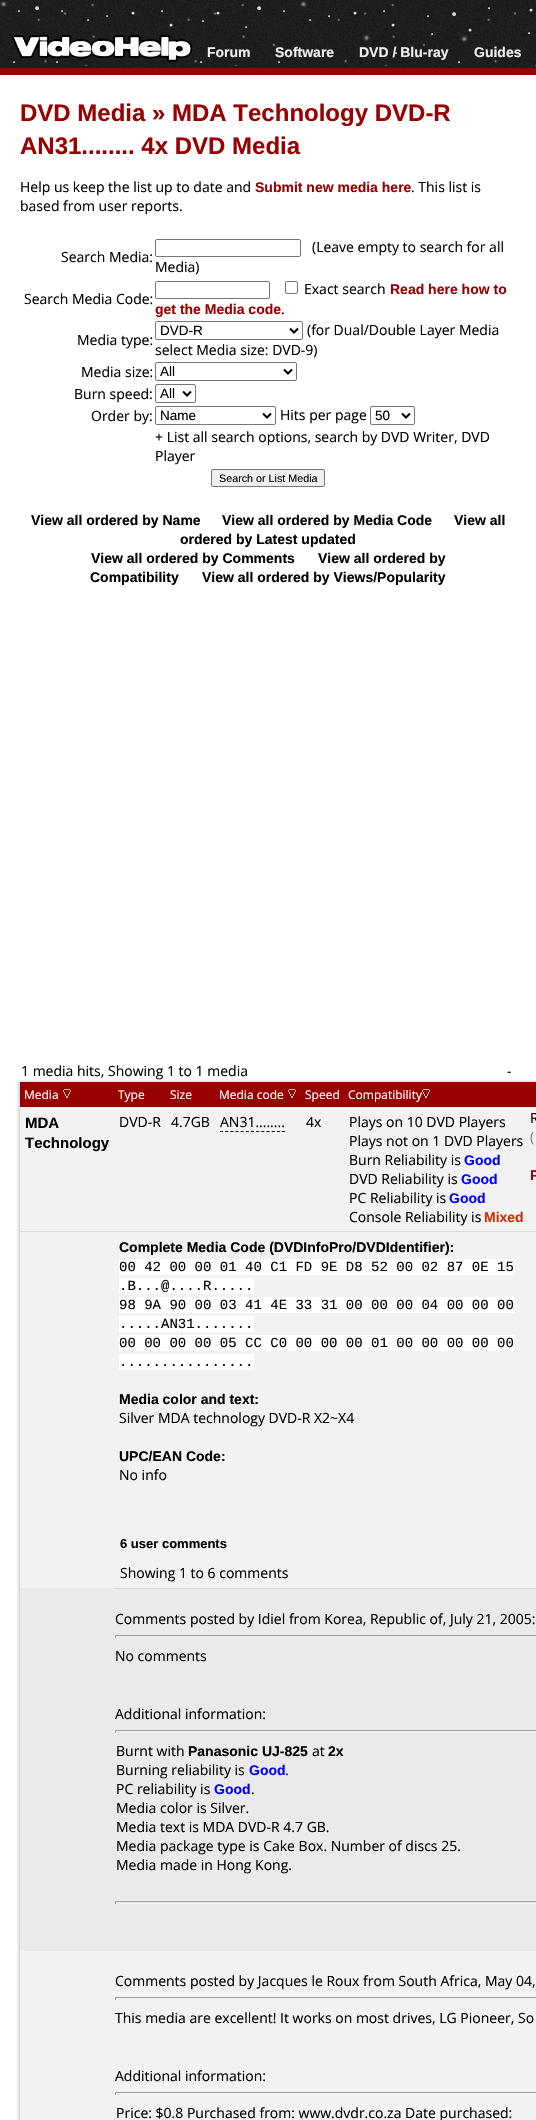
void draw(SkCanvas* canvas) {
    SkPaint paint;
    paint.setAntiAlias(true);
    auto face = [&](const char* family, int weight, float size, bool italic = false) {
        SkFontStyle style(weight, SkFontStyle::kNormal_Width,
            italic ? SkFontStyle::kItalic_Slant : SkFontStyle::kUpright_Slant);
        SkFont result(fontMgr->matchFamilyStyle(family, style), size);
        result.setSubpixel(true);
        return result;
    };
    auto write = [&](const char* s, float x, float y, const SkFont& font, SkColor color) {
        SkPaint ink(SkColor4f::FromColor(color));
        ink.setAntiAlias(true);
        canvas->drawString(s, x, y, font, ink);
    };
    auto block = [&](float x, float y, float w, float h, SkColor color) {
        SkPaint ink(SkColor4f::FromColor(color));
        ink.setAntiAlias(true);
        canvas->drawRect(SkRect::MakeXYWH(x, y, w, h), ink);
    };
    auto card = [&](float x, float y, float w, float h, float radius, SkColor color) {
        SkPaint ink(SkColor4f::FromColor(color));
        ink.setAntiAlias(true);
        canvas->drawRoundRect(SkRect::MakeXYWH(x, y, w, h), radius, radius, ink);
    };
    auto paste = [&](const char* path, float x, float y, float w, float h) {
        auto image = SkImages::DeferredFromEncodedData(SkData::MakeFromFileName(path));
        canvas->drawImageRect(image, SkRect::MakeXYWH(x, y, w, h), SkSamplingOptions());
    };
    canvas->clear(SkColorSetRGB(34, 34, 34));
    paste("pic2.png", 0, 0, 536, 68);
    paste("pic1.png", 0, 1, 536, 65);
    block(0, 68, 536, 7, SkColorSetRGB(153, 0, 0));
    paste("pic3.png", 12, 34, 180, 28);
    auto kFont1 = face("Liberation Sans", 700, 14);
    write("Forum", 207, 57, kFont1, SkColorSetRGB(238, 238, 238));
    write("Software", 275, 57, kFont1, SkColorSetRGB(238, 238, 238));
    write("DVD / Blu-ray", 359, 57, kFont1, SkColorSetRGB(238, 238, 238));
    write("Guides", 474, 57, kFont1, SkColorSetRGB(238, 238, 238));
    block(0, 75, 536, 2045, SK_ColorWHITE);
    auto kFont2 = face("Liberation Sans", 700, 24);
    write("DVD Media » MDA Technology DVD-R", 20, 121, kFont2, SkColorSetRGB(153, 0, 0));
    write("AN31........ 4x DVD Media", 20, 154, kFont2, SkColorSetRGB(153, 0, 0));
    auto kFont3 = face("Open Sans", 400, 14);
    write("Help us keep the list up to date and", 20, 192, kFont3, SK_ColorBLACK);
    write("Submit new media here", 255, 192, kFont1, SkColorSetRGB(153, 0, 0));
    write(". This list is", 411, 192, kFont3, SK_ColorBLACK);
    write("based from user reports.", 20, 211, kFont3, SK_ColorBLACK);
    write("Search Media:", 61, 262, kFont3, SK_ColorBLACK);
    paint.setStyle(SkPaint::kStroke_Style);
    paint.setStrokeWidth(1);
    paint.setColor(SkColorSetRGB(118, 118, 118));
    canvas->drawRoundRect(SkRect::MakeXYWH(155.5f, 239.5f, 145, 17), 1.5f, 1.5f, paint);
    write("(Leave empty to search for all", 312, 252, kFont3, SK_ColorBLACK);
    write("Media)", 155, 272, kFont3, SK_ColorBLACK);
    write("Search Media Code:", 24, 304, kFont3, SK_ColorBLACK);
    canvas->drawRoundRect(SkRect::MakeXYWH(155.5f, 281.5f, 114, 17), 1.5f, 1.5f, paint);
    canvas->drawRoundRect(SkRect::MakeXYWH(285.5f, 281.5f, 12, 12), 1.5f, 1.5f, paint);
    write("Exact search", 304, 294, kFont3, SK_ColorBLACK);
    write("Read here how to", 390, 294, kFont1, SkColorSetRGB(153, 0, 0));
    write("get the Media code", 155, 314, kFont1, SkColorSetRGB(153, 0, 0));
    write(".", 281, 314, kFont3, SK_ColorBLACK);
    write("Media type:", 77, 345, kFont3, SK_ColorBLACK);
    canvas->drawRoundRect(SkRect::MakeXYWH(155.5f, 321.5f, 147, 18), 1.5f, 1.5f, paint);
    paint.setStrokeWidth(2);
    paint.setColor(SK_ColorBLACK);
    canvas->drawPath(SkPathBuilder().moveTo(290, 328.5f).lineTo(294, 332.5f).lineTo(298, 328.5f).detach(), paint);
    auto kFont4 = face("Liberation Sans", 400, 13.5f);
    write("DVD-R", 160, 335, kFont4, SK_ColorBLACK);
    write("(for Dual/Double Layer Media", 307, 335, kFont3, SK_ColorBLACK);
    write("select Media size: DVD-9)", 155, 355, kFont3, SK_ColorBLACK);
    write("Media size:", 81, 377, kFont3, SK_ColorBLACK);
    paint.setStrokeWidth(1);
    paint.setColor(SkColorSetRGB(118, 118, 118));
    canvas->drawRoundRect(SkRect::MakeXYWH(155.5f, 362.5f, 141, 18), 1.5f, 1.5f, paint);
    paint.setStrokeWidth(2);
    paint.setColor(SK_ColorBLACK);
    canvas->drawPath(SkPathBuilder().moveTo(284, 369.5f).lineTo(288, 373.5f).lineTo(292, 369.5f).detach(), paint);
    write("All", 160, 376, kFont4, SK_ColorBLACK);
    write("Burn speed:", 74, 399, kFont3, SK_ColorBLACK);
    paint.setStrokeWidth(1);
    paint.setColor(SkColorSetRGB(118, 118, 118));
    canvas->drawRoundRect(SkRect::MakeXYWH(155.5f, 384.5f, 40, 18), 1.5f, 1.5f, paint);
    paint.setStrokeWidth(2);
    paint.setColor(SK_ColorBLACK);
    canvas->drawPath(SkPathBuilder().moveTo(183, 391.5f).lineTo(187, 395.5f).lineTo(191, 391.5f).detach(), paint);
    write("All", 160, 398, kFont4, SK_ColorBLACK);
    write("Order by:", 91, 421, kFont3, SK_ColorBLACK);
    paint.setStrokeWidth(1);
    paint.setColor(SkColorSetRGB(118, 118, 118));
    canvas->drawRoundRect(SkRect::MakeXYWH(155.5f, 406.5f, 120, 18), 1.5f, 1.5f, paint);
    paint.setStrokeWidth(2);
    paint.setColor(SK_ColorBLACK);
    canvas->drawPath(SkPathBuilder().moveTo(263, 413.5f).lineTo(267, 417.5f).lineTo(271, 413.5f).detach(), paint);
    write("Name", 160, 420, kFont4, SK_ColorBLACK);
    write("Hits per page", 280, 420, kFont3, SK_ColorBLACK);
    paint.setStrokeWidth(1);
    paint.setColor(SkColorSetRGB(118, 118, 118));
    canvas->drawRoundRect(SkRect::MakeXYWH(370.5f, 406.5f, 44, 18), 1.5f, 1.5f, paint);
    paint.setStrokeWidth(2);
    paint.setColor(SK_ColorBLACK);
    canvas->drawPath(SkPathBuilder().moveTo(402, 413.5f).lineTo(406, 417.5f).lineTo(410, 413.5f).detach(), paint);
    write("50", 375, 420, kFont4, SK_ColorBLACK);
    write("+ List all search options, search by DVD Writer, DVD", 155, 442, kFont3, SK_ColorBLACK);
    write("Player", 155, 461, kFont3, SK_ColorBLACK);
    paint.setStyle(SkPaint::kFill_Style);
    paint.setColor(SkColorSetRGB(239, 239, 239));
    canvas->drawRoundRect(SkRect::MakeXYWH(211.5f, 469.5f, 113, 17), 1.5f, 1.5f, paint);
    paint.setStyle(SkPaint::kStroke_Style);
    paint.setStrokeWidth(1);
    paint.setColor(SkColorSetRGB(118, 118, 118));
    canvas->drawRoundRect(SkRect::MakeXYWH(211.5f, 469.5f, 113, 17), 1.5f, 1.5f, paint);
    auto kFont5 = face("Liberation Sans", 400, 10.75f);
    write("Search or List Media", 219, 482, kFont5, SK_ColorBLACK);
    write("View all ordered by Name", 31, 525, kFont1, SK_ColorBLACK);
    write("View all ordered by Media Code", 222, 525, kFont1, SK_ColorBLACK);
    write("View all", 454, 525, kFont1, SK_ColorBLACK);
    write("ordered by Latest updated", 180, 544, kFont1, SK_ColorBLACK);
    write("View all ordered by Comments", 91, 563, kFont1, SK_ColorBLACK);
    write("View all ordered by", 318, 563, kFont1, SK_ColorBLACK);
    write("Compatibility", 90, 582, kFont1, SK_ColorBLACK);
    write("View all ordered by Views/Popularity", 202, 582, kFont1, SK_ColorBLACK);
    paint.setStyle(SkPaint::kFill_Style);
    paint.setColor(SkColorSetARGB(222, 203, 208, 214));
    paint.setMaskFilter(SkMaskFilter::MakeBlur(kNormal_SkBlurStyle, 1));
    canvas->drawRect(SkRect::MakeXYWH(18, 1081, 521, 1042), paint);
    paint.setMaskFilter(nullptr);
    write("1 media hits, Showing 1 to 1 media", 21, 1076, kFont3, SK_ColorBLACK);
    write("-", 507, 1076, kFont3, SK_ColorBLACK);
    block(20, 1082, 516, 25, SkColorSetRGB(153, 0, 0));
    auto kFont6 = face("Open Sans", 400, 12);
    write("Media", 24, 1099, kFont6, SK_ColorWHITE);
    paste("pic4.png", 63, 1089, 8, 9);
    write("Type", 118, 1099, kFont6, SK_ColorWHITE);
    write("Size", 170, 1099, kFont6, SK_ColorWHITE);
    write("Media code", 219, 1099, kFont6, SK_ColorWHITE);
    paste("pic4.png", 288, 1089, 8, 9);
    write("Speed", 305, 1099, kFont6, SK_ColorWHITE);
    write("Compatibility", 348, 1099, kFont6, SK_ColorWHITE);
    paste("pic4.png", 422, 1089, 8, 9);
    card(20, 1107, 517, 125, 1, SkColorSetRGB(242, 242, 242));
    card(20, 1107, 94, 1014, 1, SkColorSetRGB(242, 242, 242));
    block(20, 1231, 516, 1, SkColorSetRGB(216, 216, 216));
    auto kFont7 = face("Liberation Sans", 700, 15);
    write("MDA", 25, 1128, kFont7, SK_ColorBLACK);
    write("Technology", 25, 1148, kFont7, SK_ColorBLACK);
    write("DVD-R", 119, 1127, kFont3, SK_ColorBLACK);
    write("4.7GB", 171, 1127, kFont3, SK_ColorBLACK);
    write("AN31........", 220, 1127, kFont3, SK_ColorBLACK);
    paint.setStyle(SkPaint::kStroke_Style);
    paint.setColor(SK_ColorBLACK);
    paint.setPathEffect(SkDashPathEffect::Make({{3, 2.17f}}, 0));
    canvas->drawPath(SkPathBuilder().moveTo(220, 1131.5f).lineTo(285, 1131.5f).detach(), paint);
    paint.setPathEffect(nullptr);
    write("4x", 306, 1127, kFont3, SK_ColorBLACK);
    write("Plays on 10 DVD Players", 349, 1127, kFont3, SK_ColorBLACK);
    write("Plays not on 1 DVD Players", 349, 1146, kFont3, SK_ColorBLACK);
    write("Burn Reliability is", 349, 1165, kFont3, SK_ColorBLACK);
    write("Good", 464, 1165, kFont1, SkColorSetRGB(0, 0, 255));
    write("DVD Reliability is", 349, 1184, kFont3, SK_ColorBLACK);
    write("Good", 461, 1184, kFont1, SkColorSetRGB(0, 0, 255));
    write("PC Reliability is", 349, 1203, kFont3, SK_ColorBLACK);
    write("Good", 449, 1203, kFont1, SkColorSetRGB(0, 0, 255));
    write("Console Reliability is", 349, 1222, kFont3, SK_ColorBLACK);
    write("Mixed", 484, 1222, kFont1, SkColorSetRGB(204, 51, 0));
    write("R", 530, 1123, kFont3, SK_ColorBLACK);
    write("(", 530, 1142, kFont3, SkColorSetRGB(128, 128, 128));
    write("P", 530, 1180, kFont1, SkColorSetRGB(153, 0, 0));
    card(114, 1232, 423, 356, 1, SkColorSetRGB(242, 242, 242));
    card(20, 1588, 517, 362, 1, SkColorSetRGB(234, 234, 234));
    block(114, 1588, 422, 1, SkColorSetRGB(216, 216, 216));
    write("Complete Media Code (DVDInfoPro/DVDIdentifier):", 119, 1252, kFont1, SK_ColorBLACK);
    block(119, 1259, 395, 16, SK_ColorWHITE);
    auto kFont8 = face("Liberation Mono", 400, 14);
    write("00 42 00 00 01 40 C1 FD 9E D8 52 00 02 87 0E 15", 119, 1271, kFont8, SK_ColorBLACK);
    block(119, 1278, 135, 16, SK_ColorWHITE);
    write(".B...@....R.....", 119, 1290, kFont8, SK_ColorBLACK);
    block(119, 1297, 395, 16, SK_ColorWHITE);
    write("98 9A 90 00 03 41 4E 33 31 00 00 00 04 00 00 00", 119, 1309, kFont8, SK_ColorBLACK);
    block(119, 1316, 135, 16, SK_ColorWHITE);
    write(".....AN31.......", 119, 1328, kFont8, SK_ColorBLACK);
    block(119, 1335, 395, 16, SK_ColorWHITE);
    write("00 00 00 00 05 CC C0 00 00 00 01 00 00 00 00 00", 119, 1347, kFont8, SK_ColorBLACK);
    block(119, 1354, 135, 16, SK_ColorWHITE);
    write("................", 119, 1366, kFont8, SK_ColorBLACK);
    write("Media color and text:", 119, 1404, kFont1, SK_ColorBLACK);
    write("Silver MDA technology DVD-R X2~X4", 119, 1423, kFont3, SK_ColorBLACK);
    write("UPC/EAN Code:", 119, 1461, kFont1, SK_ColorBLACK);
    write("No info", 119, 1480, kFont3, SK_ColorBLACK);
    auto kFont9 = face("Liberation Sans", 700, 13);
    write("6 user comments", 120, 1548, kFont9, SK_ColorBLACK);
    write("Showing 1 to 6 comments", 120, 1578, kFont3, SK_ColorBLACK);
    block(20, 1950, 516, 1, SkColorSetRGB(234, 234, 234));
    write("Comments posted by Idiel from Korea, Republic of, July 21, 2005:", 115, 1624, kFont3, SK_ColorBLACK);
    block(115, 1635, 421, 1, SkColorSetRGB(159, 159, 159));
    block(115, 1637, 421, 1, SkColorSetRGB(238, 238, 238));
    block(115, 1635, 1, 3, SkColorSetRGB(159, 159, 159));
    write("No comments", 115, 1661, kFont3, SK_ColorBLACK);
    write("Additional information:", 115, 1719, kFont3, SK_ColorBLACK);
    block(115, 1730, 421, 1, SkColorSetRGB(159, 159, 159));
    block(115, 1732, 421, 1, SkColorSetRGB(238, 238, 238));
    block(115, 1730, 1, 3, SkColorSetRGB(159, 159, 159));
    write("Burnt with", 116, 1756, kFont3, SK_ColorBLACK);
    write("Panasonic UJ-825", 188, 1756, kFont1, SK_ColorBLACK);
    write("at", 312, 1756, kFont3, SK_ColorBLACK);
    write("2x", 328, 1756, kFont1, SK_ColorBLACK);
    write("Burning reliability is", 116, 1775, kFont3, SK_ColorBLACK);
    write("Good", 249, 1775, kFont1, SkColorSetRGB(0, 0, 255));
    write(".", 285, 1775, kFont3, SK_ColorBLACK);
    write("PC reliability is", 116, 1794, kFont3, SK_ColorBLACK);
    write("Good", 214, 1794, kFont1, SkColorSetRGB(0, 0, 255));
    write(".", 251, 1794, kFont3, SK_ColorBLACK);
    write("Media color is Silver.", 116, 1813, kFont3, SK_ColorBLACK);
    write("Media text is MDA DVD-R 4.7 GB.", 116, 1832, kFont3, SK_ColorBLACK);
    write("Media package type is Cake Box. Number of discs 25.", 116, 1851, kFont3, SK_ColorBLACK);
    write("Media made in Hong Kong.", 116, 1870, kFont3, SK_ColorBLACK);
    block(115, 1901, 421, 1, SkColorSetRGB(159, 159, 159));
    block(115, 1903, 421, 1, SkColorSetRGB(238, 238, 238));
    block(115, 1901, 1, 3, SkColorSetRGB(159, 159, 159));
    block(114, 1951, 422, 169, SkColorSetRGB(242, 242, 242));
    write("Comments posted by Jacques le Roux from South Africa, May 04,", 115, 1986, kFont3, SK_ColorBLACK);
    block(115, 1997, 421, 1, SkColorSetRGB(159, 159, 159));
    block(115, 1999, 421, 1, SkColorSetRGB(238, 238, 238));
    block(115, 1997, 1, 3, SkColorSetRGB(159, 159, 159));
    write("This media are excellent! It works on most drives, LG Pioneer, So", 115, 2023, kFont3, SK_ColorBLACK);
    write("Additional information:", 115, 2081, kFont3, SK_ColorBLACK);
    block(115, 2092, 421, 1, SkColorSetRGB(159, 159, 159));
    block(115, 2094, 421, 1, SkColorSetRGB(238, 238, 238));
    block(115, 2092, 1, 3, SkColorSetRGB(159, 159, 159));
    write("Price: $0.8 Purchased from: www.dvdr.co.za Date purchased:", 116, 2118, kFont3, SK_ColorBLACK);
}
